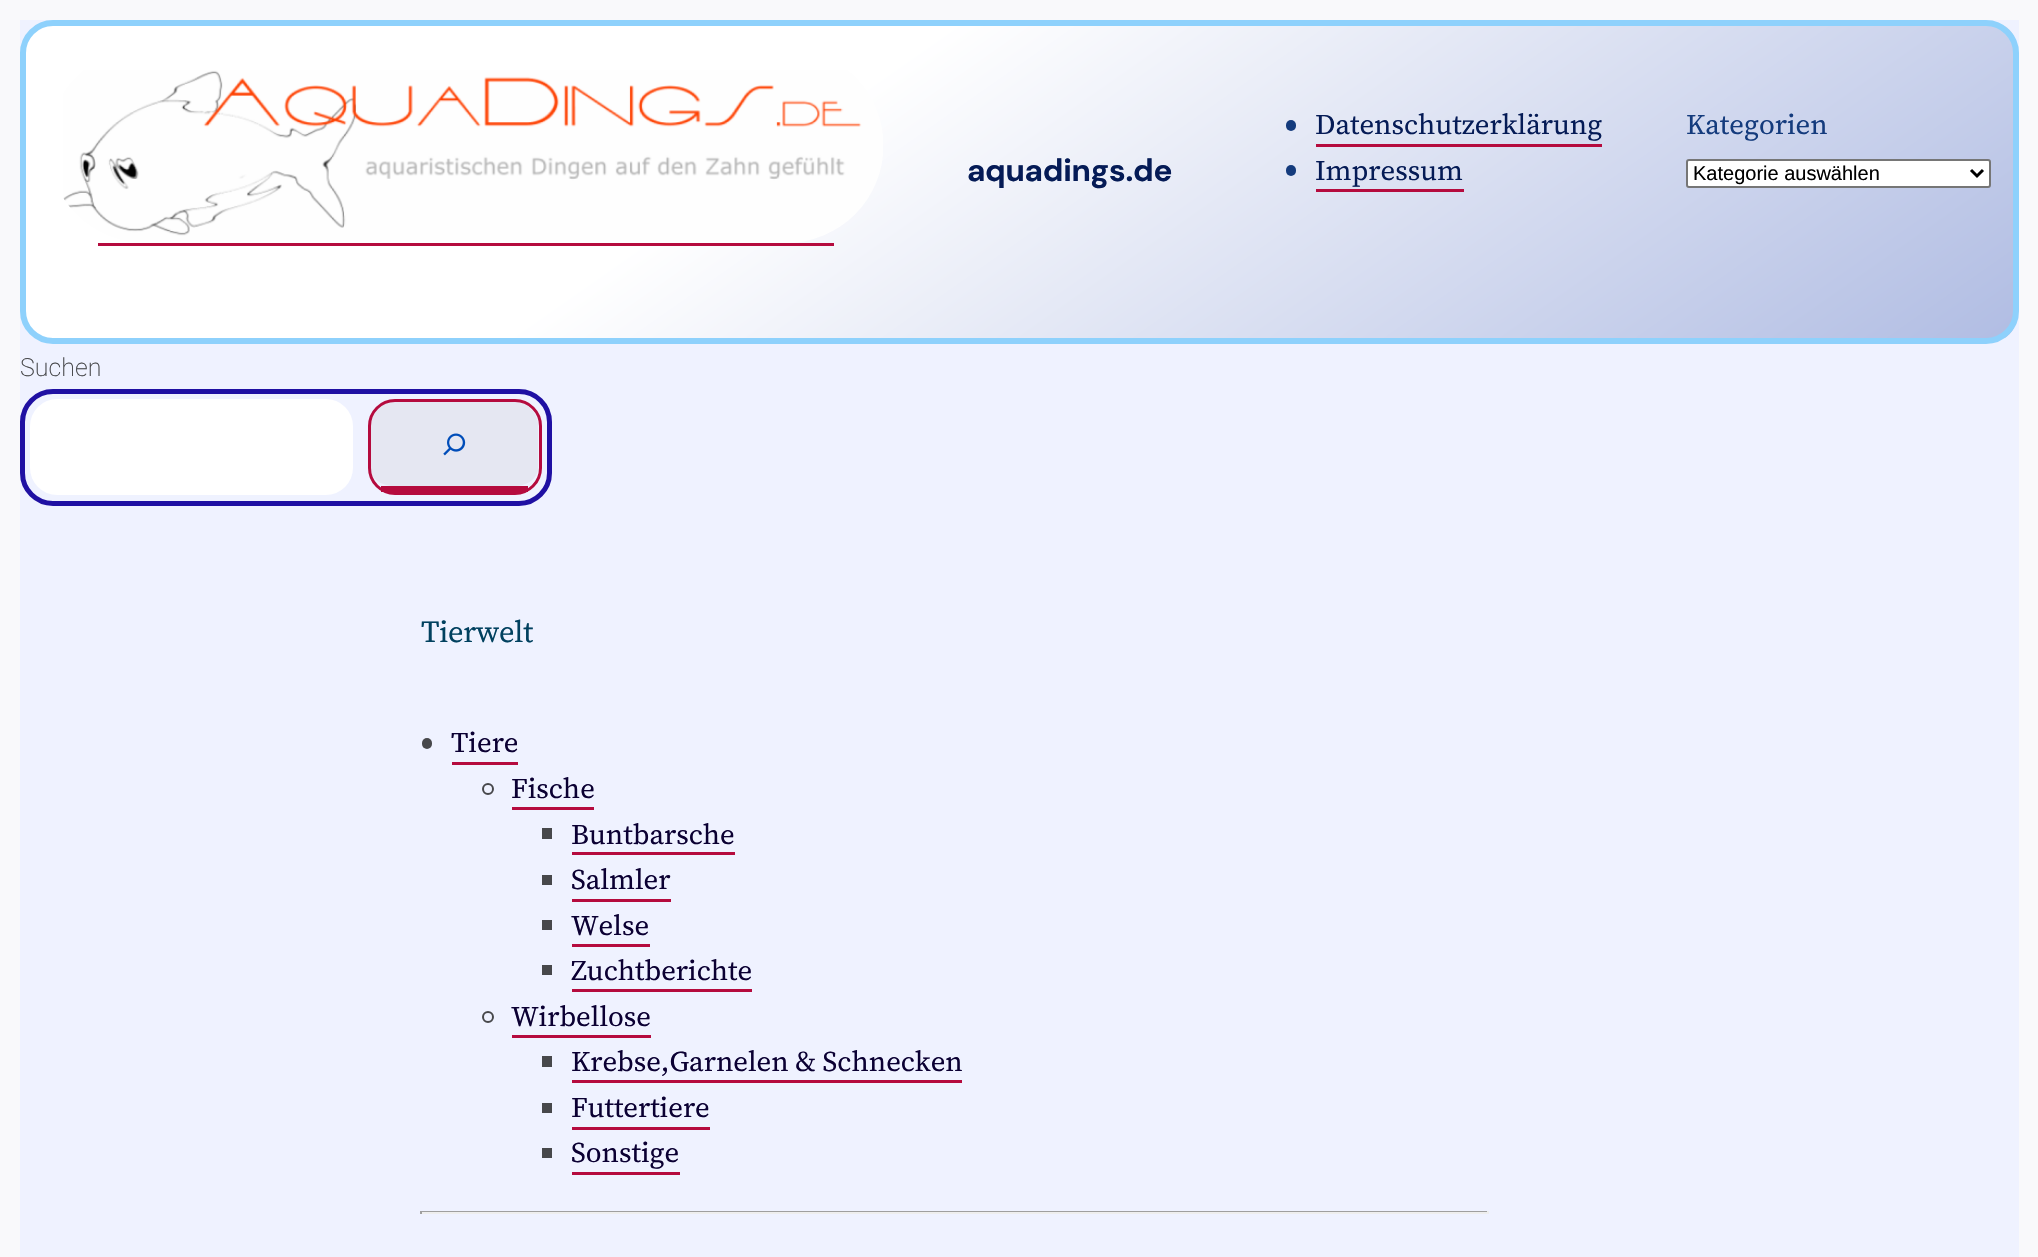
void draw(SkCanvas* canvas) {
    SkPaint paint;
    paint.setAntiAlias(true);
    auto face = [&](const char* family, int weight, float size, bool italic = false) {
        SkFontStyle style(weight, SkFontStyle::kNormal_Width,
            italic ? SkFontStyle::kItalic_Slant : SkFontStyle::kUpright_Slant);
        SkFont result(fontMgr->matchFamilyStyle(family, style), size);
        result.setSubpixel(true);
        return result;
    };
    auto write = [&](const char* s, float x, float y, const SkFont& font, SkColor color) {
        SkPaint ink(SkColor4f::FromColor(color));
        ink.setAntiAlias(true);
        canvas->drawString(s, x, y, font, ink);
    };
    auto writeSpaced = [&](const char* s, float x, float y, const SkFont& font, const SkPaint& ink, float letter, float word) {
        std::vector<SkGlyphID> glyphs(font.countText(s, strlen(s), SkTextEncoding::kUTF8));
        std::vector<float> xs(glyphs.size());
        font.textToGlyphs(s, strlen(s), SkTextEncoding::kUTF8, glyphs);
        font.getXPos(glyphs, xs, x);
        float extra = 0;
        for (size_t i = 0; i < glyphs.size(); i++) {
            xs[i] += extra;
            extra += letter + word * (glyphs[i] == font.unicharToGlyph(' '));
        }
        canvas->drawTextBlob(SkTextBlob::MakeFromPosHGlyphs(glyphs, xs, y, font), 0, 0, ink);
    };
    auto block = [&](float x, float y, float w, float h, SkColor color) {
        SkPaint ink(SkColor4f::FromColor(color));
        ink.setAntiAlias(true);
        canvas->drawRect(SkRect::MakeXYWH(x, y, w, h), ink);
    };
    auto card = [&](float x, float y, float w, float h, float radius, SkColor color) {
        SkPaint ink(SkColor4f::FromColor(color));
        ink.setAntiAlias(true);
        canvas->drawRoundRect(SkRect::MakeXYWH(x, y, w, h), radius, radius, ink);
    };
    auto paste = [&](const char* path, float x, float y, float w, float h) {
        auto image = SkImages::DeferredFromEncodedData(SkData::MakeFromFileName(path));
        canvas->drawImageRect(image, SkRect::MakeXYWH(x, y, w, h), SkSamplingOptions());
    };
    canvas->clear(SkColorSetRGB(239, 242, 255));
    paint.setStyle(SkPaint::kStroke_Style);
    paint.setStrokeWidth(20);
    paint.setColor(SkColorSetRGB(249, 249, 251));
    canvas->drawRect(SkRect::MakeXYWH(10, 10, 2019, 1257), paint);
    canvas->save();
    canvas->clipPath(SkPathBuilder().moveTo(53, 20).lineTo(1986, 20).cubicTo(2004, 20, 2019, 35, 2019, 53).lineTo(2019, 311).cubicTo(2019, 329, 2004, 344, 1986, 344).lineTo(53, 344).cubicTo(35, 344, 20, 329, 20, 311).lineTo(20, 53).cubicTo(20, 35, 35, 20, 53, 20).close().detach(), true);
    paint.setStyle(SkPaint::kFill_Style);
    {
        const SkColor colors[] = {SK_ColorWHITE, SkColorSetRGB(177, 189, 227)};
        const float stops[] = {0.38f, 1};
        const SkPoint ends[] = {{619, -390}, {1419, 753}};
        paint.setShader(SkGradientShader::MakeLinear(ends, colors, stops, 2, SkTileMode::kClamp));
        paint.setAlpha(255);
    }
    canvas->drawRect(SkRect::MakeXYWH(26, 26, 1987, 312), paint);
    canvas->restore();
    paint.setStyle(SkPaint::kStroke_Style);
    paint.setStrokeWidth(6);
    paint.setShader(nullptr);
    paint.setColor(SkColorSetRGB(142, 209, 252));
    canvas->drawRoundRect(SkRect::MakeXYWH(23, 23, 1993, 318), 30, 30, paint);
    block(98, 243, 736, 3, SkColorSetRGB(181, 11, 62));
    paste("pic1.png", 63, 70, 820, 173);
    auto kFont1 = face("DM Sans", 700, 31.5f);
    paint.setStyle(SkPaint::kFill_Style);
    paint.setColor(SkColorSetRGB(5, 27, 86));
    writeSpaced("aquadings.de", 967, 181, kFont1, paint, -0.25f, 0);
    card(1286, 120, 10, 11, 5, SkColorSetRGB(20, 59, 125));
    auto kFont2 = face("Source Serif 4", 400, 28.5f);
    write("Datenschutzerklärung", 1315, 134, kFont2, SkColorSetRGB(5, 27, 86));
    block(1316, 144, 286, 3, SkColorSetRGB(181, 11, 62));
    card(1286, 165, 10, 11, 5, SkColorSetRGB(20, 59, 125));
    write("Impressum", 1315, 180, kFont2, SkColorSetRGB(5, 27, 86));
    block(1316, 189, 148, 3, SkColorSetRGB(181, 11, 62));
    write("Kategorien", 1686, 134, kFont2, SkColorSetRGB(20, 59, 125));
    paint.setColor(SK_ColorWHITE);
    canvas->drawRoundRect(SkRect::MakeXYWH(1687, 160, 303, 27), 2, 2, paint);
    paint.setStyle(SkPaint::kStroke_Style);
    paint.setStrokeWidth(2);
    paint.setColor(SkColorSetRGB(118, 118, 118));
    canvas->drawRoundRect(SkRect::MakeXYWH(1687, 160, 303, 27), 2, 2, paint);
    paint.setStrokeWidth(3);
    paint.setColor(SK_ColorBLACK);
    canvas->drawPath(SkPathBuilder().moveTo(1971, 170).lineTo(1977, 176).lineTo(1983, 170).detach(), paint);
    auto kFont3 = face("Liberation Sans", 400, 20);
    write("Kategorie auswählen", 1693, 180, kFont3, SK_ColorBLACK);
    auto kFont4 = face("Roboto", 200, 25);
    write("Suchen", 20, 376, kFont4, SkColorSetRGB(71, 72, 75));
    paint.setStrokeWidth(5);
    paint.setColor(SkColorSetRGB(31, 16, 163));
    canvas->drawRoundRect(SkRect::MakeXYWH(22.5f, 391.5f, 527, 112), 30.5f, 30.5f, paint);
    card(30, 399, 323, 96, 27, SK_ColorWHITE);
    paint.setStyle(SkPaint::kFill_Style);
    paint.setColor(SkColorSetRGB(229, 231, 242));
    canvas->drawPath(SkPathBuilder().moveTo(394, 402).lineTo(514, 402).cubicTo(528, 402, 538, 413, 538, 426).lineTo(538, 468).cubicTo(538, 478, 528, 486, 514, 486).lineTo(394, 486).cubicTo(381, 486, 370, 478, 370, 468).lineTo(370, 426).cubicTo(370, 413, 381, 402, 394, 402).close().detach(), paint);
    paint.setStyle(SkPaint::kStroke_Style);
    paint.setStrokeWidth(3);
    paint.setColor(SkColorSetRGB(181, 11, 62));
    canvas->drawRoundRect(SkRect::MakeXYWH(369.5f, 400.5f, 171, 93), 25.5f, 25.5f, paint);
    block(381, 486, 147, 6, SkColorSetRGB(181, 11, 62));
    paste("pic2.png", 443, 433, 23, 23);
    auto kFont5 = face("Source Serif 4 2", 400, 30.5f);
    paint.setStyle(SkPaint::kFill_Style);
    paint.setColor(SkColorSetRGB(1, 65, 95));
    writeSpaced("Tierwelt", 421, 642, kFont5, paint, -0.25f, 0);
    card(422, 738, 10, 11, 5, SkColorSetRGB(71, 72, 75));
    write("Tiere", 451, 752, kFont2, SkColorSetRGB(11, 0, 51));
    block(452, 762, 66, 3, SkColorSetRGB(181, 11, 62));
    paint.setStyle(SkPaint::kStroke_Style);
    paint.setStrokeWidth(2);
    paint.setColor(SkColorSetRGB(71, 72, 75));
    canvas->drawCircle(488, 789, 5, paint);
    write("Fische", 511, 798, kFont2, SkColorSetRGB(11, 0, 51));
    block(512, 807, 82, 3, SkColorSetRGB(181, 11, 62));
    block(542, 828, 10, 11, SkColorSetRGB(71, 72, 75));
    write("Buntbarsche", 571, 844, kFont2, SkColorSetRGB(11, 0, 51));
    block(572, 852, 163, 3, SkColorSetRGB(181, 11, 62));
    block(542, 875, 10, 10, SkColorSetRGB(71, 72, 75));
    write("Salmler", 571, 889, kFont2, SkColorSetRGB(11, 0, 51));
    block(572, 899, 99, 3, SkColorSetRGB(181, 11, 62));
    block(542, 920, 10, 10, SkColorSetRGB(71, 72, 75));
    write("Welse", 571, 935, kFont2, SkColorSetRGB(11, 0, 51));
    block(572, 944, 78, 3, SkColorSetRGB(181, 11, 62));
    block(542, 965, 10, 10, SkColorSetRGB(71, 72, 75));
    write("Zuchtberichte", 571, 980, kFont2, SkColorSetRGB(11, 0, 51));
    block(572, 989, 180, 3, SkColorSetRGB(181, 11, 62));
    canvas->drawCircle(488, 1017, 5, paint);
    write("Wirbellose", 511, 1026, kFont2, SkColorSetRGB(11, 0, 51));
    block(512, 1035, 139, 3, SkColorSetRGB(181, 11, 62));
    block(542, 1056, 10, 11, SkColorSetRGB(71, 72, 75));
    write("Krebse,Garnelen & Schnecken", 571, 1071, kFont2, SkColorSetRGB(11, 0, 51));
    block(572, 1080, 390, 3, SkColorSetRGB(181, 11, 62));
    block(542, 1103, 10, 10, SkColorSetRGB(71, 72, 75));
    write("Futtertiere", 571, 1117, kFont2, SkColorSetRGB(11, 0, 51));
    block(572, 1127, 138, 3, SkColorSetRGB(181, 11, 62));
    block(542, 1148, 10, 10, SkColorSetRGB(71, 72, 75));
    write("Sonstige", 571, 1162, kFont2, SkColorSetRGB(11, 0, 51));
    block(572, 1172, 108, 3, SkColorSetRGB(181, 11, 62));
    block(420, 1211, 1068, 1, SkColorSetRGB(159, 159, 159));
    block(1487, 1211, 2, 3, SkColorSetRGB(238, 238, 238));
    block(420, 1212, 1068, 2, SkColorSetRGB(238, 238, 238));
    block(420, 1211, 2, 3, SkColorSetRGB(159, 159, 159));
}
